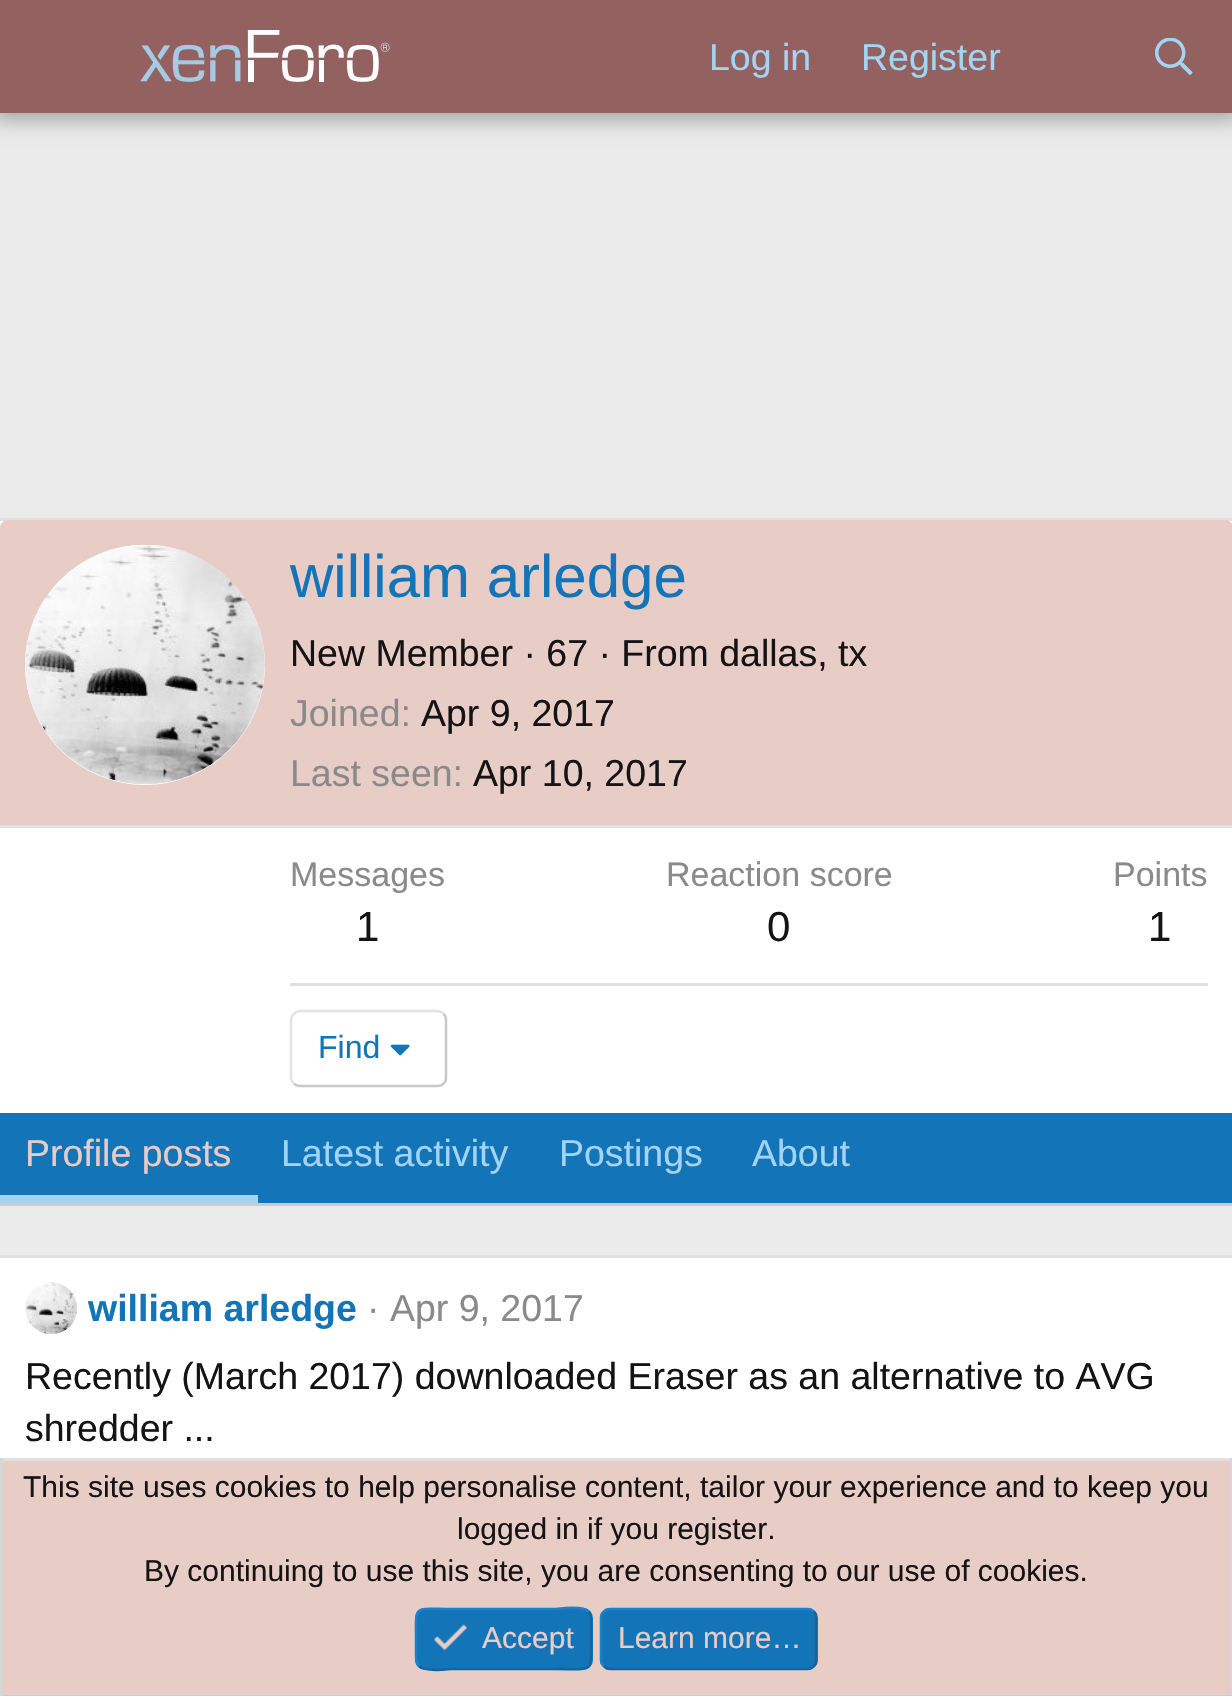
void draw(SkCanvas* canvas) {
    SkPaint paint;
    paint.setAntiAlias(true);
    auto face = [&](const char* family, int weight, float size, bool italic = false) {
        SkFontStyle style(weight, SkFontStyle::kNormal_Width,
            italic ? SkFontStyle::kItalic_Slant : SkFontStyle::kUpright_Slant);
        SkFont result(fontMgr->matchFamilyStyle(family, style), size);
        result.setSubpixel(true);
        return result;
    };
    auto write = [&](const char* s, float x, float y, const SkFont& font, SkColor color) {
        SkPaint ink(SkColor4f::FromColor(color));
        ink.setAntiAlias(true);
        canvas->drawString(s, x, y, font, ink);
    };
    auto block = [&](float x, float y, float w, float h, SkColor color) {
        SkPaint ink(SkColor4f::FromColor(color));
        ink.setAntiAlias(true);
        canvas->drawRect(SkRect::MakeXYWH(x, y, w, h), ink);
    };
    auto card = [&](float x, float y, float w, float h, float radius, SkColor color) {
        SkPaint ink(SkColor4f::FromColor(color));
        ink.setAntiAlias(true);
        canvas->drawRoundRect(SkRect::MakeXYWH(x, y, w, h), radius, radius, ink);
    };
    auto paste = [&](const char* path, float x, float y, float w, float h) {
        auto image = SkImages::DeferredFromEncodedData(SkData::MakeFromFileName(path));
        canvas->drawImageRect(image, SkRect::MakeXYWH(x, y, w, h), SkSamplingOptions());
    };
    canvas->clear(SkColorSetRGB(235, 235, 235));
    canvas->save();
    canvas->clipPath(SkPathBuilder(SkPathFillType::kEvenOdd).moveTo(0, 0).lineTo(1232, 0).lineTo(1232, 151).lineTo(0, 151).close().moveTo(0, 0).lineTo(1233, 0).lineTo(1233, 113).lineTo(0, 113).close().detach(), true);
    paint.setColor(SkColorSetARGB(77, 0, 0, 0));
    paint.setMaskFilter(SkMaskFilter::MakeBlur(kNormal_SkBlurStyle, 10));
    canvas->drawRect(SkRect::MakeXYWH(-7, -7, 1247, 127), paint);
    paint.setMaskFilter(nullptr);
    canvas->restore();
    block(0, 0, 1232, 113, SkColorSetARGB(189, 116, 48, 46));
    paste("pic1.png", 140, 30, 250, 52);
    auto kFont1 = face("Liberation Sans", 400, 37.5f);
    write("Log in", 709, 70, kFont1, SkColorSetRGB(163, 212, 245));
    write("Register", 861, 70, kFont1, SkColorSetRGB(163, 212, 245));
    paste("pic2.png", 1155, 38, 38, 37);
    block(0, 521, 1232, 592, SK_ColorWHITE);
    block(0, 518, 1232, 3, SkColorSetRGB(224, 224, 224));
    block(0, 1203, 1232, 3, SkColorSetRGB(204, 204, 204));
    paint.setColor(SkColorSetRGB(232, 204, 198));
    canvas->drawPath(SkPathBuilder().moveTo(8, 520).lineTo(1225, 520).cubicTo(1229.5f, 520, 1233, 523.5f, 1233, 528).lineTo(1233, 828).lineTo(0, 828).lineTo(0, 528).cubicTo(0, 523.5f, 3.5f, 520, 8, 520).close().detach(), paint);
    block(0, 825, 1232, 3, SkColorSetRGB(224, 224, 224));
    paint.setColor(SK_ColorWHITE);
    canvas->drawCircle(145, 665, 120, paint);
    paste("pic3.png", 25, 544, 240, 240);
    auto kFont2 = face("Liberation Sans", 400, 60);
    write("william arledge", 290, 597, kFont2, SkColorSetRGB(20, 116, 184));
    write("New Member · 67 · From dallas, tx", 290, 666, kFont1, SkColorSetRGB(20, 20, 20));
    write("Joined:", 290, 726, kFont1, SkColorSetRGB(138, 138, 138));
    write("Apr 9, 2017", 421, 726, kFont1, SkColorSetRGB(20, 20, 20));
    write("Last seen:", 290, 786, kFont1, SkColorSetRGB(138, 138, 138));
    write("Apr 10, 2017", 473, 786, kFont1, SkColorSetRGB(20, 20, 20));
    auto kFont3 = face("Liberation Sans", 400, 34);
    write("Messages", 290, 886, kFont3, SkColorSetRGB(138, 138, 138));
    auto kFont4 = face("Liberation Sans", 400, 42);
    write("1", 356, 941, kFont4, SkColorSetRGB(20, 20, 20));
    write("Reaction score", 666, 886, kFont3, SkColorSetRGB(138, 138, 138));
    write("0", 767, 941, kFont4, SkColorSetRGB(20, 20, 20));
    write("Points", 1113, 886, kFont3, SkColorSetRGB(138, 138, 138));
    write("1", 1148, 941, kFont4, SkColorSetRGB(20, 20, 20));
    block(290, 983, 918, 3, SkColorSetRGB(224, 224, 224));
    paint.setStyle(SkPaint::kStroke_Style);
    paint.setStrokeWidth(2.5f);
    paint.setColor(SkColorSetRGB(201, 201, 201));
    canvas->drawPath(SkPathBuilder().moveTo(443.5f, 1014).cubicTo(445.5f, 1015.5f, 446, 1017.5f, 446, 1020).lineTo(446, 1077.5f).cubicTo(446, 1080, 445.5f, 1082, 443.5f, 1083.5f).cubicTo(442, 1085.5f, 440, 1086, 437.5f, 1086).lineTo(300, 1086).cubicTo(297.5f, 1086, 295.5f, 1085.5f, 294, 1083.5f).detach(), paint);
    paint.setColor(SkColorSetRGB(227, 227, 227));
    canvas->drawPath(SkPathBuilder().moveTo(294, 1083.5f).cubicTo(292, 1082, 291, 1080, 291, 1077.5f).lineTo(291, 1020).cubicTo(291, 1017.5f, 292, 1015.5f, 294, 1014).cubicTo(295.5f, 1012, 297.5f, 1011, 300, 1011).lineTo(437.5f, 1011).cubicTo(440, 1011, 442, 1012, 443.5f, 1014).detach(), paint);
    auto kFont5 = face("Liberation Sans", 400, 32);
    write("Find", 318, 1058, kFont5, SkColorSetRGB(20, 116, 184));
    paste("pic4.png", 390, 1044, 20, 12);
    block(0, 1113, 1232, 90, SkColorSetRGB(20, 116, 184));
    block(0, 1195, 258, 8, SkColorSetRGB(163, 212, 245));
    write("Profile posts", 25, 1166, kFont1, SkColorSetRGB(232, 204, 198));
    write("Latest activity", 281, 1166, kFont1, SkColorSetRGB(163, 212, 245));
    write("Postings", 559, 1166, kFont1, SkColorSetRGB(163, 212, 245));
    write("About", 752, 1166, kFont1, SkColorSetRGB(163, 212, 245));
    block(0, 1258, 1232, 200, SK_ColorWHITE);
    block(0, 1255, 1232, 3, SkColorSetRGB(224, 224, 224));
    paste("pic5.png", 25, 1282, 53, 52);
    auto kFont6 = face("Liberation Sans", 700, 37.5f);
    write("william arledge", 88, 1321, kFont6, SkColorSetRGB(20, 116, 184));
    write("· Apr 9, 2017", 367, 1321, kFont1, SkColorSetRGB(138, 138, 138));
    write("Recently (March 2017) downloaded Eraser as an alternative to AVG", 25, 1389, kFont1, SkColorSetRGB(20, 20, 20));
    write("shredder ...", 25, 1441, kFont1, SkColorSetRGB(20, 20, 20));
    block(3, 1461, 1227, 234, SkColorSetRGB(232, 204, 198));
    block(0, 1458, 1232, 3, SkColorSetRGB(224, 224, 224));
    block(1230, 1458, 2, 238, SkColorSetRGB(214, 214, 214));
    block(0, 1695, 1232, 1, SkColorSetRGB(204, 204, 204));
    block(0, 1458, 3, 238, SkColorSetRGB(214, 214, 214));
    auto kFont7 = face("Liberation Sans", 400, 30);
    write("This site uses cookies to help personalise content, tailor your experience and to keep you", 23, 1497, kFont7, SkColorSetRGB(20, 20, 20));
    write("logged in if you register.", 457, 1539, kFont7, SkColorSetRGB(20, 20, 20));
    write("By continuing to use this site, you are consenting to our use of cookies.", 144, 1581, kFont7, SkColorSetRGB(20, 20, 20));
    card(415, 1608, 178, 62, 10, SkColorSetRGB(20, 116, 184));
    paint.setColor(SkColorSetRGB(18, 101, 161));
    canvas->drawPath(SkPathBuilder().moveTo(588.5f, 1611.5f).cubicTo(592, 1615, 591, 1620, 591, 1624.5f).lineTo(591, 1639).cubicTo(591, 1674, 594.5f, 1669, 556, 1669).lineTo(451, 1669).cubicTo(450, 1669, 425, 1672.5f, 419, 1666).detach(), paint);
    paint.setColor(SkColorSetRGB(23, 130, 207));
    canvas->drawPath(SkPathBuilder().moveTo(419, 1666).cubicTo(415.5f, 1662.5f, 416, 1657.5f, 416, 1653).lineTo(416, 1639).cubicTo(416, 1603.5f, 413, 1609, 451, 1609).lineTo(556, 1609).cubicTo(557.5f, 1609, 582.5f, 1605, 588.5f, 1611.5f).detach(), paint);
    paste("pic6.png", 434, 1624, 33, 27);
    write("Accept", 482, 1648, kFont7, SkColorSetRGB(232, 204, 198));
    card(600, 1608, 218, 62, 10, SkColorSetRGB(20, 116, 184));
    paint.setColor(SkColorSetRGB(18, 101, 161));
    canvas->drawPath(SkPathBuilder().moveTo(813.5f, 1611.5f).cubicTo(815.5f, 1613, 816, 1615, 816, 1617.5f).lineTo(816, 1660).cubicTo(816, 1662.5f, 815.5f, 1664.5f, 813.5f, 1666).cubicTo(812, 1668, 810, 1669, 807.5f, 1669).lineTo(610, 1669).cubicTo(607.5f, 1669, 605.5f, 1668, 604, 1666).detach(), paint);
    paint.setColor(SkColorSetRGB(23, 130, 207));
    canvas->drawPath(SkPathBuilder().moveTo(604, 1666).cubicTo(602, 1664.5f, 601, 1662.5f, 601, 1660).lineTo(601, 1617.5f).cubicTo(601, 1615, 602, 1613, 604, 1611.5f).cubicTo(605.5f, 1609.5f, 607.5f, 1609, 610, 1609).lineTo(807.5f, 1609).cubicTo(810, 1609, 812, 1609.5f, 813.5f, 1611.5f).detach(), paint);
    write("Learn more…", 618, 1648, kFont7, SkColorSetRGB(232, 204, 198));
}
